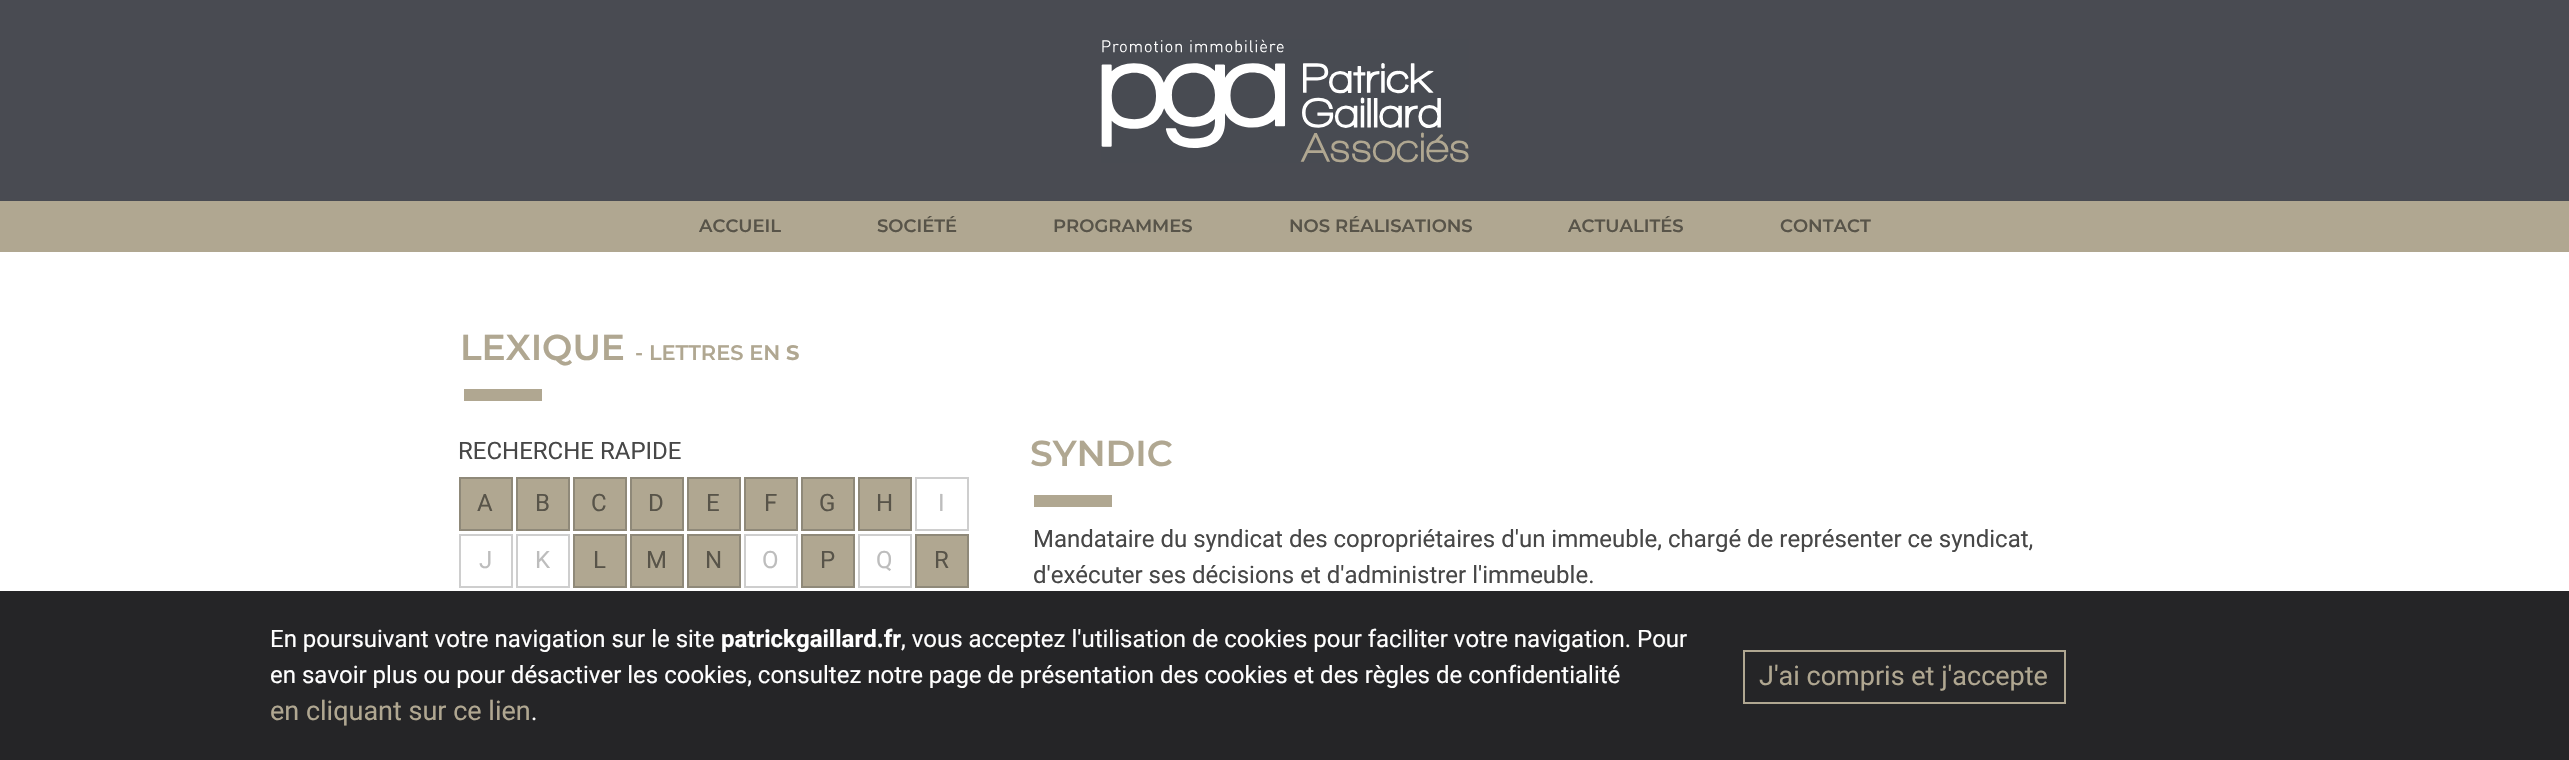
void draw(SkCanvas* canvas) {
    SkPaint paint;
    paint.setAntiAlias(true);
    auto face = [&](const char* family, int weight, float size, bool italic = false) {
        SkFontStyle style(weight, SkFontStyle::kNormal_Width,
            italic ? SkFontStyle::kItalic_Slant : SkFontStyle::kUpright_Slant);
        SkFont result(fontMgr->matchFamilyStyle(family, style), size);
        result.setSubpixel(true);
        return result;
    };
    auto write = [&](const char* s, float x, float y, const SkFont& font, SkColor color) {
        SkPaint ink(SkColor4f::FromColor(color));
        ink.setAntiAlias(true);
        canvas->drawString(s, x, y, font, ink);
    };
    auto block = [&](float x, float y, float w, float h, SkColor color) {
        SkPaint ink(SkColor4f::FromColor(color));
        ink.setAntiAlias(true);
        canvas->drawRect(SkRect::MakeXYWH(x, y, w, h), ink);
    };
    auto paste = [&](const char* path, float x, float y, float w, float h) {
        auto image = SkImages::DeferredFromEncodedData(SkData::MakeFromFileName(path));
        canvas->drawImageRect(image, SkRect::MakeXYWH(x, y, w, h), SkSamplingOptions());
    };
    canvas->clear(SK_ColorWHITE);
    block(0, 0, 2569, 201, SkColorSetRGB(73, 75, 82));
    paste("pic1.png", 1101, 39, 368, 124);
    block(0, 201, 2569, 51, SkColorSetRGB(176, 167, 145));
    auto kFont1 = face("Montserrat", 600, 18);
    write("ACCUEIL", 699, 232, kFont1, SkColorSetRGB(88, 84, 73));
    write("SOCIÉTÉ", 877, 232, kFont1, SkColorSetRGB(88, 84, 73));
    write("PROGRAMMES", 1053, 232, kFont1, SkColorSetRGB(88, 84, 73));
    write("NOS RÉALISATIONS", 1289, 232, kFont1, SkColorSetRGB(88, 84, 73));
    write("ACTUALITÉS", 1568, 232, kFont1, SkColorSetRGB(88, 84, 73));
    write("CONTACT", 1780, 232, kFont1, SkColorSetRGB(88, 84, 73));
    auto kFont2 = face("Montserrat", 600, 36);
    write("LEXIQUE", 460, 360, kFont2, SkColorSetRGB(176, 167, 145));
    auto kFont3 = face("Montserrat", 600, 21);
    write("- LETTRES EN", 635, 360, kFont3, SkColorSetRGB(176, 167, 145));
    auto kFont4 = face("Montserrat", 700, 21);
    write("S", 786, 360, kFont4, SkColorSetRGB(176, 167, 145));
    block(464, 389, 78, 12, SkColorSetRGB(176, 167, 145));
    auto kFont5 = face("Roboto", 400, 24);
    write("RECHERCHE RAPIDE", 458, 459, kFont5, SkColorSetRGB(71, 71, 71));
    paint.setColor(SkColorSetRGB(176, 167, 145));
    canvas->drawRect(SkRect::MakeXYWH(460, 478, 52, 52), paint);
    paint.setStyle(SkPaint::kStroke_Style);
    paint.setStrokeWidth(2);
    paint.setColor(SkColorSetRGB(143, 137, 121));
    canvas->drawRect(SkRect::MakeXYWH(460, 478, 52, 52), paint);
    write("A", 477, 511, kFont5, SkColorSetRGB(88, 84, 73));
    paint.setStyle(SkPaint::kFill_Style);
    paint.setColor(SkColorSetRGB(176, 167, 145));
    canvas->drawRect(SkRect::MakeXYWH(517, 478, 52, 52), paint);
    paint.setStyle(SkPaint::kStroke_Style);
    paint.setColor(SkColorSetRGB(143, 137, 121));
    canvas->drawRect(SkRect::MakeXYWH(517, 478, 52, 52), paint);
    write("B", 535, 511, kFont5, SkColorSetRGB(88, 84, 73));
    paint.setStyle(SkPaint::kFill_Style);
    paint.setColor(SkColorSetRGB(176, 167, 145));
    canvas->drawRect(SkRect::MakeXYWH(574, 478, 52, 52), paint);
    paint.setStyle(SkPaint::kStroke_Style);
    paint.setColor(SkColorSetRGB(143, 137, 121));
    canvas->drawRect(SkRect::MakeXYWH(574, 478, 52, 52), paint);
    write("C", 591, 511, kFont5, SkColorSetRGB(88, 84, 73));
    paint.setStyle(SkPaint::kFill_Style);
    paint.setColor(SkColorSetRGB(176, 167, 145));
    canvas->drawRect(SkRect::MakeXYWH(631, 478, 52, 52), paint);
    paint.setStyle(SkPaint::kStroke_Style);
    paint.setColor(SkColorSetRGB(143, 137, 121));
    canvas->drawRect(SkRect::MakeXYWH(631, 478, 52, 52), paint);
    write("D", 648, 511, kFont5, SkColorSetRGB(88, 84, 73));
    paint.setStyle(SkPaint::kFill_Style);
    paint.setColor(SkColorSetRGB(176, 167, 145));
    canvas->drawRect(SkRect::MakeXYWH(688, 478, 52, 52), paint);
    paint.setStyle(SkPaint::kStroke_Style);
    paint.setColor(SkColorSetRGB(143, 137, 121));
    canvas->drawRect(SkRect::MakeXYWH(688, 478, 52, 52), paint);
    write("E", 706, 511, kFont5, SkColorSetRGB(88, 84, 73));
    paint.setStyle(SkPaint::kFill_Style);
    paint.setColor(SkColorSetRGB(176, 167, 145));
    canvas->drawRect(SkRect::MakeXYWH(745, 478, 52, 52), paint);
    paint.setStyle(SkPaint::kStroke_Style);
    paint.setColor(SkColorSetRGB(143, 137, 121));
    canvas->drawRect(SkRect::MakeXYWH(745, 478, 52, 52), paint);
    write("F", 764, 511, kFont5, SkColorSetRGB(88, 84, 73));
    paint.setStyle(SkPaint::kFill_Style);
    paint.setColor(SkColorSetRGB(176, 167, 145));
    canvas->drawRect(SkRect::MakeXYWH(802, 478, 52, 52), paint);
    paint.setStyle(SkPaint::kStroke_Style);
    paint.setColor(SkColorSetRGB(143, 137, 121));
    canvas->drawRect(SkRect::MakeXYWH(802, 478, 52, 52), paint);
    write("G", 819, 511, kFont5, SkColorSetRGB(88, 84, 73));
    paint.setStyle(SkPaint::kFill_Style);
    paint.setColor(SkColorSetRGB(176, 167, 145));
    canvas->drawRect(SkRect::MakeXYWH(859, 478, 52, 52), paint);
    paint.setStyle(SkPaint::kStroke_Style);
    paint.setColor(SkColorSetRGB(143, 137, 121));
    canvas->drawRect(SkRect::MakeXYWH(859, 478, 52, 52), paint);
    write("H", 876, 511, kFont5, SkColorSetRGB(88, 84, 73));
    paint.setColor(SkColorSetRGB(206, 206, 206));
    canvas->drawRect(SkRect::MakeXYWH(916, 478, 52, 52), paint);
    write("I", 938, 511, kFont5, SkColorSetRGB(189, 189, 189));
    canvas->drawRect(SkRect::MakeXYWH(460, 535, 52, 52), paint);
    write("J", 479, 568, kFont5, SkColorSetRGB(189, 189, 189));
    canvas->drawRect(SkRect::MakeXYWH(517, 535, 52, 52), paint);
    write("K", 535, 568, kFont5, SkColorSetRGB(189, 189, 189));
    paint.setStyle(SkPaint::kFill_Style);
    paint.setColor(SkColorSetRGB(176, 167, 145));
    canvas->drawRect(SkRect::MakeXYWH(574, 535, 52, 52), paint);
    paint.setStyle(SkPaint::kStroke_Style);
    paint.setColor(SkColorSetRGB(143, 137, 121));
    canvas->drawRect(SkRect::MakeXYWH(574, 535, 52, 52), paint);
    write("L", 593, 568, kFont5, SkColorSetRGB(88, 84, 73));
    paint.setStyle(SkPaint::kFill_Style);
    paint.setColor(SkColorSetRGB(176, 167, 145));
    canvas->drawRect(SkRect::MakeXYWH(631, 535, 52, 52), paint);
    paint.setStyle(SkPaint::kStroke_Style);
    paint.setColor(SkColorSetRGB(143, 137, 121));
    canvas->drawRect(SkRect::MakeXYWH(631, 535, 52, 52), paint);
    write("M", 646, 568, kFont5, SkColorSetRGB(88, 84, 73));
    paint.setStyle(SkPaint::kFill_Style);
    paint.setColor(SkColorSetRGB(176, 167, 145));
    canvas->drawRect(SkRect::MakeXYWH(688, 535, 52, 52), paint);
    paint.setStyle(SkPaint::kStroke_Style);
    paint.setColor(SkColorSetRGB(143, 137, 121));
    canvas->drawRect(SkRect::MakeXYWH(688, 535, 52, 52), paint);
    write("N", 705, 568, kFont5, SkColorSetRGB(88, 84, 73));
    paint.setColor(SkColorSetRGB(206, 206, 206));
    canvas->drawRect(SkRect::MakeXYWH(745, 535, 52, 52), paint);
    write("O", 762, 568, kFont5, SkColorSetRGB(189, 189, 189));
    paint.setStyle(SkPaint::kFill_Style);
    paint.setColor(SkColorSetRGB(176, 167, 145));
    canvas->drawRect(SkRect::MakeXYWH(802, 535, 52, 52), paint);
    paint.setStyle(SkPaint::kStroke_Style);
    paint.setColor(SkColorSetRGB(143, 137, 121));
    canvas->drawRect(SkRect::MakeXYWH(802, 535, 52, 52), paint);
    write("P", 820, 568, kFont5, SkColorSetRGB(88, 84, 73));
    paint.setColor(SkColorSetRGB(206, 206, 206));
    canvas->drawRect(SkRect::MakeXYWH(859, 535, 52, 52), paint);
    write("Q", 876, 568, kFont5, SkColorSetRGB(189, 189, 189));
    paint.setStyle(SkPaint::kFill_Style);
    paint.setColor(SkColorSetRGB(176, 167, 145));
    canvas->drawRect(SkRect::MakeXYWH(916, 535, 52, 52), paint);
    paint.setStyle(SkPaint::kStroke_Style);
    paint.setColor(SkColorSetRGB(143, 137, 121));
    canvas->drawRect(SkRect::MakeXYWH(916, 535, 52, 52), paint);
    write("R", 934, 568, kFont5, SkColorSetRGB(88, 84, 73));
    write("SYNDIC", 1030, 466, kFont2, SkColorSetRGB(176, 167, 145));
    block(1034, 495, 78, 12, SkColorSetRGB(176, 167, 145));
    write("Mandataire du syndicat des copropriétaires d'un immeuble, chargé de représenter ce syndicat,", 1033, 547, kFont5, SkColorSetRGB(71, 71, 71));
    write("d'exécuter ses décisions et d'administrer l'immeuble.", 1033, 583, kFont5, SkColorSetRGB(71, 71, 71));
    block(0, 591, 2569, 169, SkColorSetRGB(37, 37, 39));
    write("En poursuivant votre navigation sur le site", 270, 647, kFont5, SK_ColorWHITE);
    auto kFont6 = face("Roboto", 700, 24);
    write("patrickgaillard.fr", 721, 647, kFont6, SK_ColorWHITE);
    write(", vous acceptez l'utilisation de cookies pour faciliter votre navigation. Pour", 901, 647, kFont5, SK_ColorWHITE);
    write("en savoir plus ou pour désactiver les cookies, consultez notre page de présentation des cookies et des règles de confidentialité", 270, 683, kFont5, SK_ColorWHITE);
    auto kFont7 = face("Roboto", 400, 27);
    write("en cliquant sur ce lien", 270, 720, kFont7, SkColorSetRGB(176, 167, 145));
    write(".", 531, 720, kFont5, SK_ColorWHITE);
    paint.setColor(SkColorSetRGB(176, 167, 145));
    canvas->drawRect(SkRect::MakeXYWH(1744, 651, 321, 52), paint);
    write("J'ai compris et j'accepte", 1759, 685, kFont7, SkColorSetRGB(176, 167, 145));
}
